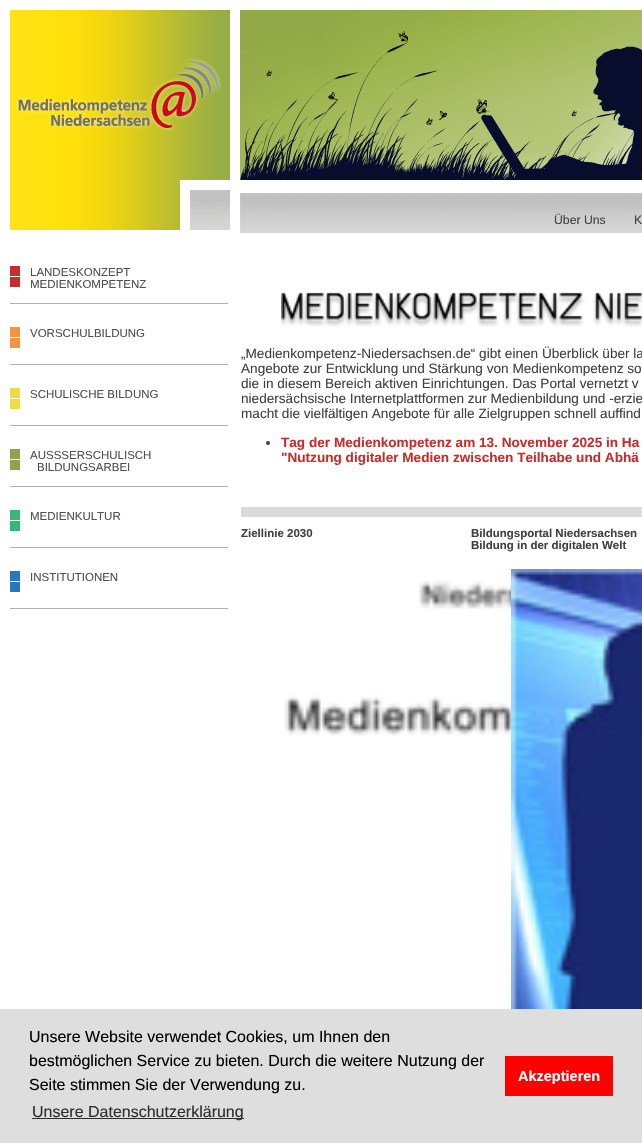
void draw(SkCanvas* canvas) {
    SkPaint paint;
    paint.setAntiAlias(true);
    auto face = [&](const char* family, int weight, float size, bool italic = false) {
        SkFontStyle style(weight, SkFontStyle::kNormal_Width,
            italic ? SkFontStyle::kItalic_Slant : SkFontStyle::kUpright_Slant);
        SkFont result(fontMgr->matchFamilyStyle(family, style), size);
        result.setSubpixel(true);
        return result;
    };
    auto write = [&](const char* s, float x, float y, const SkFont& font, SkColor color) {
        SkPaint ink(SkColor4f::FromColor(color));
        ink.setAntiAlias(true);
        canvas->drawString(s, x, y, font, ink);
    };
    auto block = [&](float x, float y, float w, float h, SkColor color) {
        SkPaint ink(SkColor4f::FromColor(color));
        ink.setAntiAlias(true);
        canvas->drawRect(SkRect::MakeXYWH(x, y, w, h), ink);
    };
    auto paste = [&](const char* path, float x, float y, float w, float h) {
        auto image = SkImages::DeferredFromEncodedData(SkData::MakeFromFileName(path));
        canvas->drawImageRect(image, SkRect::MakeXYWH(x, y, w, h), SkSamplingOptions());
    };
    canvas->clear(SK_ColorWHITE);
    paste("pic1.png", 10, 10, 220, 220);
    paste("pic2.png", 240, 10, 402, 170);
    paste("pic3.png", 240, 193, 402, 40);
    auto kFont1 = face("Liberation Sans", 400, 12.25f);
    write("Über Uns", 554, 224, kFont1, SkColorSetRGB(65, 65, 65));
    write("K", 634, 224, kFont1, SkColorSetRGB(65, 65, 65));
    paste("pic4.png", 10, 266, 10, 21);
    block(10, 303, 218, 1, SkColorSetRGB(180, 180, 180));
    auto kFont2 = face("Liberation Sans", 400, 11.5f);
    write("LANDESKONZEPT", 30, 276, kFont2, SkColorSetRGB(80, 80, 80));
    write("MEDIENKOMPETENZ", 30, 288, kFont2, SkColorSetRGB(80, 80, 80));
    paste("pic5.png", 10, 327, 10, 21);
    block(10, 364, 218, 1, SkColorSetRGB(180, 180, 180));
    write("VORSCHULBILDUNG", 30, 337, kFont2, SkColorSetRGB(80, 80, 80));
    paste("pic6.png", 10, 388, 10, 21);
    block(10, 425, 218, 1, SkColorSetRGB(180, 180, 180));
    write("SCHULISCHE BILDUNG", 30, 398, kFont2, SkColorSetRGB(80, 80, 80));
    paste("pic7.png", 10, 449, 10, 21);
    block(10, 486, 218, 1, SkColorSetRGB(180, 180, 180));
    write("AUSSSERSCHULISCH", 30, 459, kFont2, SkColorSetRGB(80, 80, 80));
    write("BILDUNGSARBEI", 37, 471, kFont2, SkColorSetRGB(80, 80, 80));
    paste("pic8.png", 10, 510, 10, 21);
    block(10, 547, 218, 1, SkColorSetRGB(180, 180, 180));
    write("MEDIENKULTUR", 30, 520, kFont2, SkColorSetRGB(80, 80, 80));
    paste("pic9.png", 10, 571, 10, 21);
    block(10, 608, 218, 1, SkColorSetRGB(180, 180, 180));
    write("INSTITUTIONEN", 30, 581, kFont2, SkColorSetRGB(80, 80, 80));
    paste("pic10.png", 281, 292, 361, 35);
    auto kFont3 = face("Liberation Sans", 400, 13.6f);
    write("„Medienkompetenz-Niedersachsen.de“ gibt einen Überblick über la", 241, 358, kFont3, SkColorSetRGB(65, 65, 65));
    write("Angebote zur Entwicklung und Stärkung von Medienkompetenz so", 241, 373, kFont3, SkColorSetRGB(65, 65, 65));
    write("die in diesem Bereich aktiven Einrichtungen. Das Portal vernetzt v", 241, 388, kFont3, SkColorSetRGB(65, 65, 65));
    write("niedersächsische Internetplattformen zur Medienbildung und -erzie", 241, 403, kFont3, SkColorSetRGB(65, 65, 65));
    write("macht die vielfältigen Angebote für alle Zielgruppen schnell auffind", 241, 418, kFont3, SkColorSetRGB(65, 65, 65));
    paint.setColor(SkColorSetRGB(65, 65, 65));
    canvas->drawCircle(268, 443, 2, paint);
    auto kFont4 = face("Liberation Sans", 700, 13.6f);
    write("Tag der Medienkompetenz am 13. November 2025 in Ha", 281, 447, kFont4, SkColorSetRGB(199, 45, 44));
    write("\"Nutzung digitaler Medien zwischen Teilhabe und Abhä", 281, 462, kFont4, SkColorSetRGB(199, 45, 44));
    block(241, 507, 401, 10, SkColorSetRGB(218, 218, 218));
    auto kFont5 = face("Liberation Sans", 700, 11.5f);
    write("Ziellinie 2030", 241, 537, kFont5, SkColorSetRGB(65, 65, 65));
    paste("pic11.png", 284, 580, 227, 429);
    write("Bildungsportal Niedersachsen", 471, 537, kFont5, SkColorSetRGB(65, 65, 65));
    write("Bildung in der digitalen Welt", 471, 549, kFont5, SkColorSetRGB(65, 65, 65));
    paste("pic12.png", 511, 569, 131, 440);
    block(0, 1009, 642, 134, SkColorSetRGB(222, 222, 222));
    auto kFont6 = face("Liberation Sans", 400, 16);
    write("Unsere Website verwendet Cookies, um Ihnen den", 29, 1042, kFont6, SK_ColorBLACK);
    write("bestmöglichen Service zu bieten. Durch die weitere Nutzung der", 29, 1066, kFont6, SK_ColorBLACK);
    write("Seite stimmen Sie der Verwendung zu.", 29, 1090, kFont6, SK_ColorBLACK);
    block(32, 1118, 212, 1, SkColorSetRGB(44, 44, 44));
    write("Unsere Datenschutzerklärung", 32, 1117, kFont6, SkColorSetRGB(44, 44, 44));
    block(505, 1056, 108, 40, SkColorSetRGB(255, 0, 0));
    auto kFont7 = face("Liberation Sans", 700, 14.5f);
    write("Akzeptieren", 518, 1081, kFont7, SK_ColorWHITE);
}
